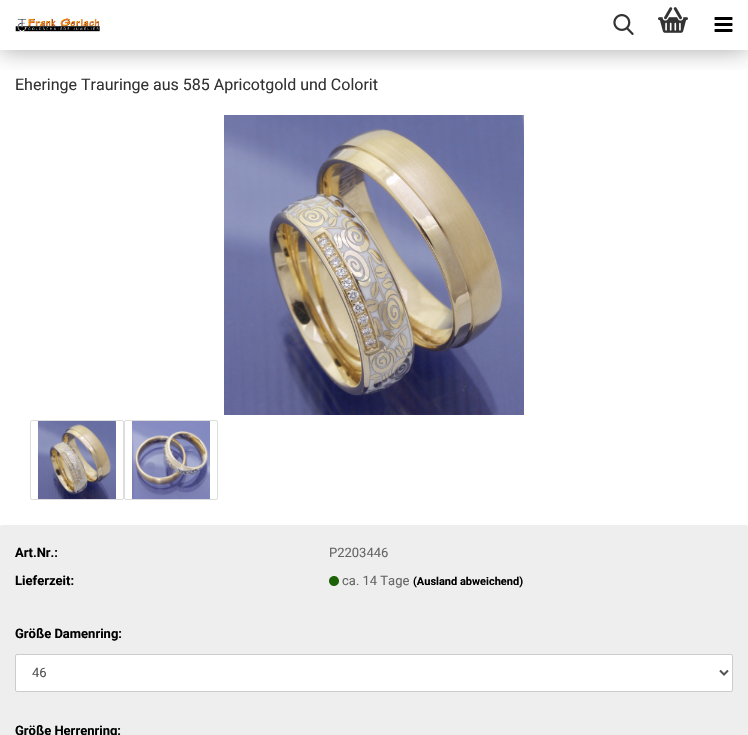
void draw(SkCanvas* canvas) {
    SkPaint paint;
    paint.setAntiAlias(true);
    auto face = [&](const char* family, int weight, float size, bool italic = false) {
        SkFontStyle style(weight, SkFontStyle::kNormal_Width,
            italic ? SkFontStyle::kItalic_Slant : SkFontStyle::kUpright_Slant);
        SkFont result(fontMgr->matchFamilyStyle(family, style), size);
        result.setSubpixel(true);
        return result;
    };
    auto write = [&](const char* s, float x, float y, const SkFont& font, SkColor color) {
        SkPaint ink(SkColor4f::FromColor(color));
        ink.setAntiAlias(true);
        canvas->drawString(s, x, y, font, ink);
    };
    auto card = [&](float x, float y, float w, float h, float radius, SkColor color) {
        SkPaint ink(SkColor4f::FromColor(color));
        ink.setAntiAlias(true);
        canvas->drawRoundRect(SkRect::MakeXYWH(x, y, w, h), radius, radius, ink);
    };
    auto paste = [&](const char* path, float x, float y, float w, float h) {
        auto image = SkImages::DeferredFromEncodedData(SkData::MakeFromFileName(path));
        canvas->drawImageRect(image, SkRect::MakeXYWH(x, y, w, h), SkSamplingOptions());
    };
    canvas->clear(SK_ColorWHITE);
    canvas->save();
    canvas->clipRect(SkRect::MakeXYWH(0, 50, 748, 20));
    paint.setColor(SkColorSetARGB(89, 0, 0, 0));
    paint.setMaskFilter(SkMaskFilter::MakeBlur(kNormal_SkBlurStyle, 12.5f));
    canvas->drawRect(SkRect::MakeXYWH(0, 0, 748, 50), paint);
    paint.setMaskFilter(nullptr);
    canvas->restore();
    paste("pic1.png", 15, 18, 85, 14);
    paste("pic2.png", 613, 14, 21, 21);
    paste("pic3.png", 658, 7, 30, 26);
    paste("pic4.png", 714, 17, 19, 15);
    auto kFont1 = face("Roboto", 400, 16);
    write("Eheringe Trauringe aus 585 Apricotgold und Colorit", 15, 90, kFont1, SkColorSetRGB(51, 51, 51));
    paste("pic5.png", 224, 115, 300, 300);
    paint.setStyle(SkPaint::kStroke_Style);
    paint.setStrokeWidth(1);
    paint.setColor(SkColorSetRGB(221, 221, 221));
    canvas->drawRoundRect(SkRect::MakeXYWH(30.5f, 420.5f, 93, 79), 1.5f, 1.5f, paint);
    paste("pic6.png", 38, 421, 78, 78);
    canvas->drawRoundRect(SkRect::MakeXYWH(124.5f, 420.5f, 93, 79), 1.5f, 1.5f, paint);
    paste("pic7.png", 132, 421, 78, 78);
    card(0, 525, 748, 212, 2, SkColorSetRGB(238, 238, 238));
    auto kFont2 = face("Roboto", 700, 13);
    write("Art.Nr.:", 15, 557, kFont2, SK_ColorBLACK);
    auto kFont3 = face("Roboto", 400, 13);
    write("P2203446", 329, 557, kFont3, SkColorSetRGB(102, 102, 102));
    write("Lieferzeit:", 15, 585, kFont2, SK_ColorBLACK);
    paste("pic8.png", 329, 576, 10, 10);
    write("ca. 14 Tage", 342, 585, kFont3, SkColorSetRGB(102, 102, 102));
    auto kFont4 = face("Roboto", 700, 11);
    write("(Ausland abweichend)", 413, 585, kFont4, SK_ColorBLACK);
    write("Größe Damenring:", 15, 638, kFont2, SK_ColorBLACK);
    paint.setStyle(SkPaint::kFill_Style);
    paint.setColor(SK_ColorWHITE);
    canvas->drawRoundRect(SkRect::MakeXYWH(15.5f, 654.5f, 717, 37), 1.5f, 1.5f, paint);
    paint.setStyle(SkPaint::kStroke_Style);
    paint.setColor(SkColorSetRGB(204, 204, 204));
    canvas->drawRoundRect(SkRect::MakeXYWH(15.5f, 654.5f, 717, 37), 1.5f, 1.5f, paint);
    paint.setStrokeWidth(2);
    paint.setColor(SkColorSetRGB(85, 85, 85));
    canvas->drawPath(SkPathBuilder().moveTo(720, 670.5f).lineTo(724, 674.5f).lineTo(728, 670.5f).detach(), paint);
    write("46", 32, 677, kFont3, SkColorSetRGB(85, 85, 85));
    write("Größe Herrenring:", 15, 735, kFont2, SK_ColorBLACK);
}
